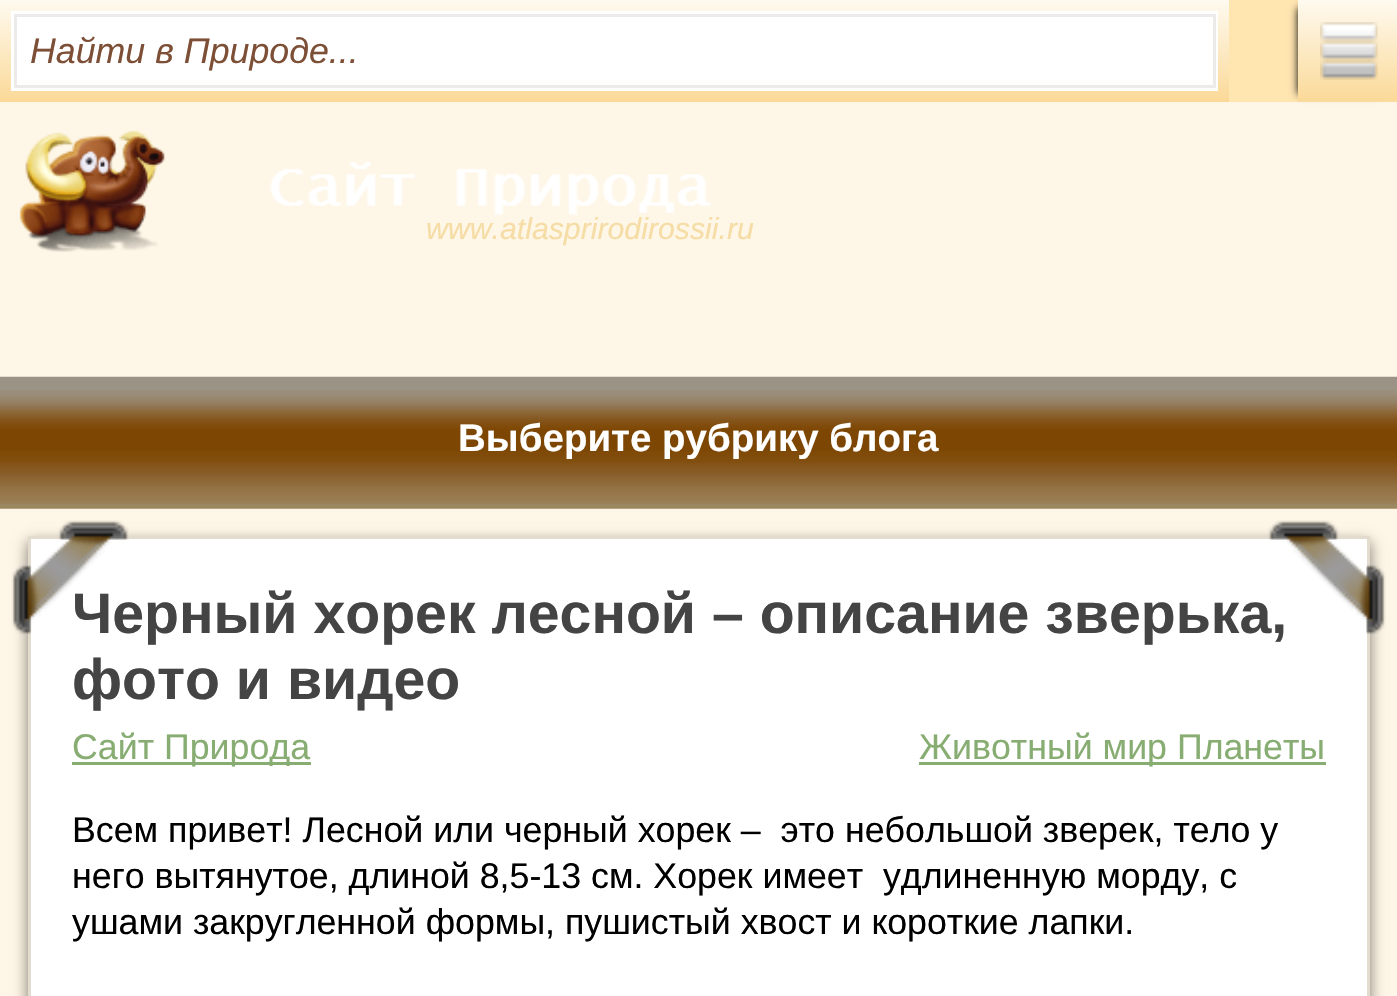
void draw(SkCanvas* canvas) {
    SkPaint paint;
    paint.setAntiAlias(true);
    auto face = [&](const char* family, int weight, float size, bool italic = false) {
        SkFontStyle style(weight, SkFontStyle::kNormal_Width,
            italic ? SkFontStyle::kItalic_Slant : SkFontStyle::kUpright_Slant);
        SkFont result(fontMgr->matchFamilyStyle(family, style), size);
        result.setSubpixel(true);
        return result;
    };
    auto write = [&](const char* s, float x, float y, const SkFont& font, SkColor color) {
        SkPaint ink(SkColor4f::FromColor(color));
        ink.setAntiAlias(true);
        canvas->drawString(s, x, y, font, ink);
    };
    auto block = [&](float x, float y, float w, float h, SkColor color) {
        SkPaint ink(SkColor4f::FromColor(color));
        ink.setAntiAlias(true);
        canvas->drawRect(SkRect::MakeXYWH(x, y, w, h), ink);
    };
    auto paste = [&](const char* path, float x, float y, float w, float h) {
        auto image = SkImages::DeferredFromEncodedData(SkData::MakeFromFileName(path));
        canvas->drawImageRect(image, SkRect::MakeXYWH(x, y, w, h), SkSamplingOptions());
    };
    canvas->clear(SkColorSetRGB(254, 246, 230));
    block(1229, 0, 168, 102, SkColorSetRGB(255, 229, 176));
    {
        const SkColor colors[] = {SkColorSetRGB(254, 250, 240), SkColorSetRGB(251, 217, 151)};
        const float stops[] = {0, 1};
        const SkPoint ends[] = {{615, 0}, {615, 102}};
        paint.setShader(SkGradientShader::MakeLinear(ends, colors, stops, 2, SkTileMode::kClamp));
        paint.setAlpha(255);
    }
    canvas->drawRect(SkRect::MakeXYWH(0, 0, 1229, 102), paint);
    paint.setStyle(SkPaint::kStroke_Style);
    paint.setStrokeWidth(3);
    paint.setShader(nullptr);
    paint.setColor(SK_ColorWHITE);
    canvas->drawRect(SkRect::MakeXYWH(12.5f, 12.5f, 1204, 77), paint);
    paint.setStyle(SkPaint::kFill_Style);
    canvas->drawRect(SkRect::MakeXYWH(15.5f, 15.5f, 1199, 71), paint);
    paint.setStyle(SkPaint::kStroke_Style);
    paint.setColor(SkColorSetRGB(236, 235, 234));
    canvas->drawRect(SkRect::MakeXYWH(15.5f, 15.5f, 1199, 71), paint);
    auto kFont1 = face("Liberation Sans", 400, 35.75f, true);
    write("Найти в Природе...", 30, 63, kFont1, SkColorSetRGB(125, 79, 54));
    paint.setStyle(SkPaint::kFill_Style);
    paint.setColor(SK_ColorBLACK);
    paint.setMaskFilter(SkMaskFilter::MakeBlur(kNormal_SkBlurStyle, 4));
    canvas->drawRect(SkRect::MakeXYWH(1298, 8, 83, 86), paint);
    paint.setMaskFilter(nullptr);
    paste("pic1.png", 1298, 0, 99, 102);
    paste("pic2.png", 19, 130, 146, 122);
    paste("pic3.png", 270, 161, 442, 54);
    auto kFont2 = face("Liberation Sans", 400, 30.25f, true);
    write("www.atlasprirodirossii.ru", 426, 239, kFont2, SkColorSetRGB(246, 220, 165));
    paste("pic4.png", 0, 376, 1397, 133);
    auto kFont3 = face("Liberation Sans", 700, 38.5f);
    write("Выберите рубрику блога", 458, 451, kFont3, SK_ColorWHITE);
    paint.setColor(SkColorSetARGB(128, 0, 0, 0));
    paint.setMaskFilter(SkMaskFilter::MakeBlur(kNormal_SkBlurStyle, 7));
    canvas->drawRect(SkRect::MakeXYWH(28, 542, 1342, 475), paint);
    paint.setMaskFilter(nullptr);
    block(31, 539, 1336, 457, SK_ColorWHITE);
    block(28, 536, 1342, 3, SkColorSetRGB(227, 220, 206));
    block(1367, 536, 3, 460, SkColorSetRGB(227, 220, 206));
    block(28, 536, 3, 460, SkColorSetRGB(227, 220, 206));
    auto kFont4 = face("Liberation Sans", 700, 57.2f);
    write("Черный хорек лесной – описание зверька,", 72, 633, kFont4, SkColorSetRGB(68, 68, 68));
    paste("pic5.png", 11, 520, 118, 115);
    paste("pic6.png", 1268, 520, 118, 115);
    write("фото и видео", 72, 699, kFont4, SkColorSetRGB(68, 68, 68));
    block(72, 762, 239, 3, SkColorSetRGB(136, 173, 114));
    auto kFont5 = face("Liberation Sans", 400, 35.75f);
    write("Сайт Природа", 72, 759, kFont5, SkColorSetRGB(136, 173, 114));
    block(919, 762, 407, 3, SkColorSetRGB(136, 173, 114));
    write("Животный мир Планеты", 919, 759, kFont5, SkColorSetRGB(136, 173, 114));
    write("Всем привет! Лесной или черный хорек –  это небольшой зверек, тело у", 72, 842, kFont5, SK_ColorBLACK);
    write("него вытянутое, длиной 8,5-13 см. Хорек имеет  удлиненную морду, с", 72, 888, kFont5, SK_ColorBLACK);
    write("ушами закругленной формы, пушистый хвост и короткие лапки.", 72, 934, kFont5, SK_ColorBLACK);
}
